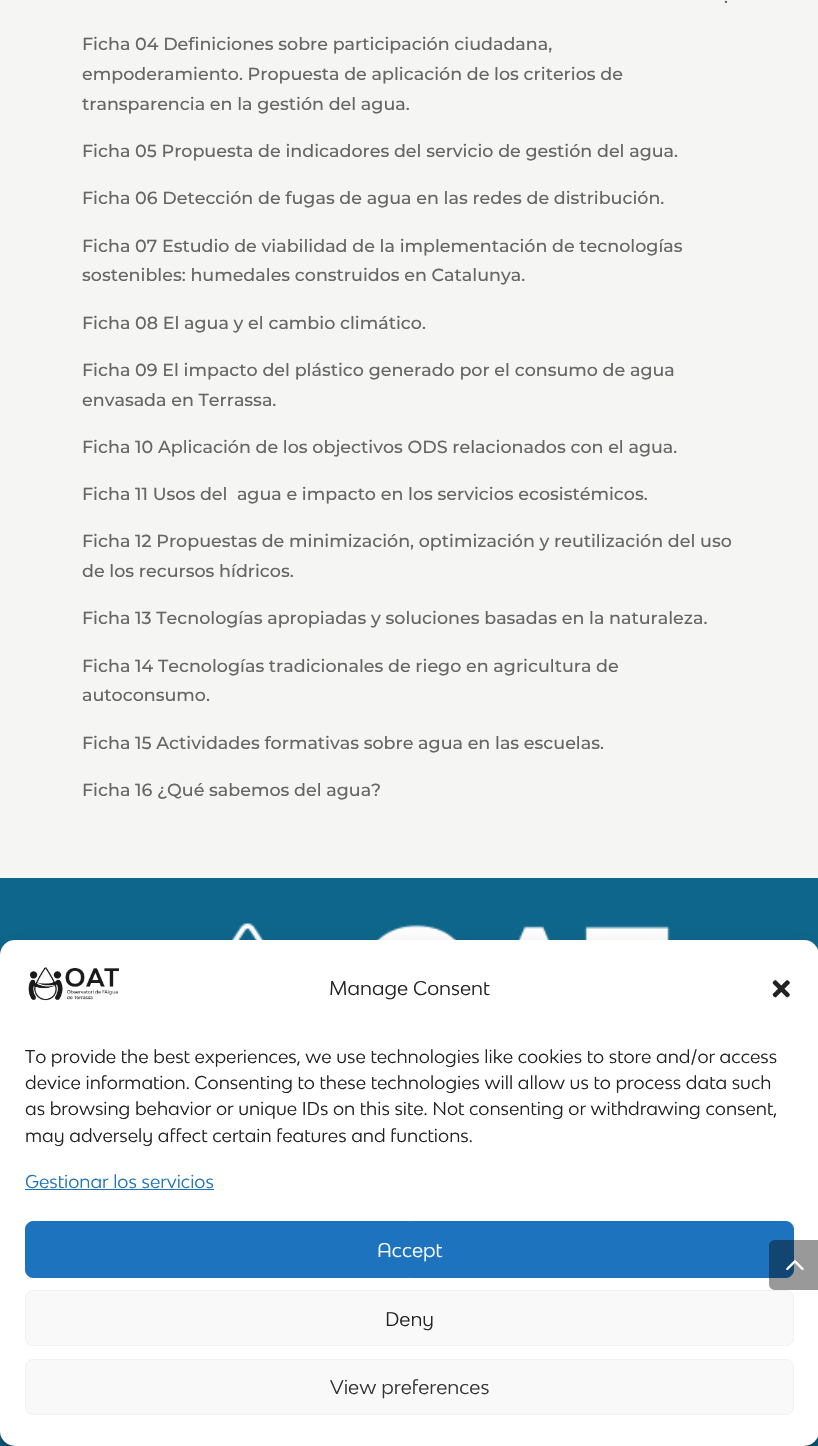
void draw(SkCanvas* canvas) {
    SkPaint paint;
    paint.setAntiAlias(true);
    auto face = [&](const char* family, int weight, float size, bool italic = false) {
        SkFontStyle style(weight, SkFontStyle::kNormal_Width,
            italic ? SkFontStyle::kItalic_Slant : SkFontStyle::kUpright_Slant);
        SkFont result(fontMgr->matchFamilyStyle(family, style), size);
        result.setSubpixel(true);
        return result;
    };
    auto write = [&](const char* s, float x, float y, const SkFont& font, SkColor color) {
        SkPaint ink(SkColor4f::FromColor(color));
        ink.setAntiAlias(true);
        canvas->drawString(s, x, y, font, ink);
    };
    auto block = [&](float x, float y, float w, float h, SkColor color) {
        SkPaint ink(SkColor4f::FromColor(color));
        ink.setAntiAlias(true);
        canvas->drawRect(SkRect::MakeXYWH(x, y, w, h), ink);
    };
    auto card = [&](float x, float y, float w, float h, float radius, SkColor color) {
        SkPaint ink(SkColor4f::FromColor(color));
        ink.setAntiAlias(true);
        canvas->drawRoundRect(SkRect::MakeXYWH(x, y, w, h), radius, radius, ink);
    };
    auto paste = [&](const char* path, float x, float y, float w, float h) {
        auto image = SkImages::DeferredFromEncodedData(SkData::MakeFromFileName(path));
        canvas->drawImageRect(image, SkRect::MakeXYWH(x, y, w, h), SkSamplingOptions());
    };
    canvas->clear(SkColorSetRGB(245, 245, 243));
    auto kFont1 = face("Montserrat", 500, 17.5f);
    write(".", 724, 3, kFont1, SkColorSetRGB(102, 102, 102));
    write("Ficha 04 Definiciones sobre participación ciudadana,", 82, 50, kFont1, SkColorSetRGB(102, 102, 102));
    write("empoderamiento. Propuesta de aplicación de los criterios de", 82, 80, kFont1, SkColorSetRGB(102, 102, 102));
    write("transparencia en la gestión del agua.", 82, 110, kFont1, SkColorSetRGB(102, 102, 102));
    write("Ficha 05 Propuesta de indicadores del servicio de gestión del agua.", 82, 157, kFont1, SkColorSetRGB(102, 102, 102));
    write("Ficha 06 Detección de fugas de agua en las redes de distribución.", 82, 204, kFont1, SkColorSetRGB(102, 102, 102));
    write("Ficha 07 Estudio de viabilidad de la implementación de tecnologías", 82, 252, kFont1, SkColorSetRGB(102, 102, 102));
    write("sostenibles: humedales construidos en Catalunya.", 82, 281, kFont1, SkColorSetRGB(102, 102, 102));
    write("Ficha 08 El agua y el cambio climático.", 82, 329, kFont1, SkColorSetRGB(102, 102, 102));
    write("Ficha 09 El impacto del plástico generado por el consumo de agua", 82, 376, kFont1, SkColorSetRGB(102, 102, 102));
    write("envasada en Terrassa.", 82, 406, kFont1, SkColorSetRGB(102, 102, 102));
    write("Ficha 10 Aplicación de los objectivos ODS relacionados con el agua.", 82, 453, kFont1, SkColorSetRGB(102, 102, 102));
    write("Ficha 11 Usos del  agua e impacto en los servicios ecosistémicos.", 82, 500, kFont1, SkColorSetRGB(102, 102, 102));
    write("Ficha 12 Propuestas de minimización, optimización y reutilización del uso", 82, 547, kFont1, SkColorSetRGB(102, 102, 102));
    write("de los recursos hídricos.", 82, 577, kFont1, SkColorSetRGB(102, 102, 102));
    write("Ficha 13 Tecnologías apropiadas y soluciones basadas en la naturaleza.", 82, 624, kFont1, SkColorSetRGB(102, 102, 102));
    write("Ficha 14 Tecnologías tradicionales de riego en agricultura de", 82, 672, kFont1, SkColorSetRGB(102, 102, 102));
    write("autoconsumo.", 82, 701, kFont1, SkColorSetRGB(102, 102, 102));
    write("Ficha 15 Actividades formativas sobre agua en las escuelas.", 82, 749, kFont1, SkColorSetRGB(102, 102, 102));
    write("Ficha 16 ¿Qué sabemos del agua?", 82, 796, kFont1, SkColorSetRGB(102, 102, 102));
    block(0, 878, 818, 568, SkColorSetRGB(14, 102, 140));
    paste("pic1.png", 232, 923, 438, 17);
    paint.setColor(SkColorSetARGB(59, 0, 0, 0));
    paint.setMaskFilter(SkMaskFilter::MakeBlur(kNormal_SkBlurStyle, 4));
    canvas->drawRoundRect(SkRect::MakeXYWH(0, 948, 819, 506), 15, 15, paint);
    paint.setMaskFilter(nullptr);
    paint.setColor(SkColorSetARGB(48, 0, 0, 0));
    paint.setMaskFilter(SkMaskFilter::MakeBlur(kNormal_SkBlurStyle, 12.5f));
    canvas->drawRoundRect(SkRect::MakeXYWH(0, 953, 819, 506), 15, 15, paint);
    paint.setMaskFilter(nullptr);
    card(0, 940, 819, 506, 15, SK_ColorWHITE);
    paint.setColor(SkColorSetRGB(30, 115, 190));
    canvas->drawRoundRect(SkRect::MakeXYWH(25.5f, 1221.5f, 768, 56), 7.5f, 7.5f, paint);
    paint.setStyle(SkPaint::kStroke_Style);
    paint.setStrokeWidth(1);
    canvas->drawRoundRect(SkRect::MakeXYWH(25.5f, 1221.5f, 768, 56), 7.5f, 7.5f, paint);
    paint.setStyle(SkPaint::kFill_Style);
    paint.setColor(SkColorSetARGB(102, 0, 0, 0));
    canvas->drawPath(SkPathBuilder().moveTo(775, 1240).lineTo(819, 1240).lineTo(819, 1290).lineTo(775, 1290).cubicTo(771.5f, 1290, 769, 1287.5f, 769, 1284).lineTo(769, 1246).cubicTo(769, 1242.5f, 771.5f, 1240, 775, 1240).close().detach(), paint);
    paste("pic2.png", 786, 1260, 18, 11);
    paste("pic3.png", 28, 967, 91, 34);
    auto kFont2 = face("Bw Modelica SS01", 400, 18.75f);
    write("Manage Consent", 329, 995, kFont2, SkColorSetRGB(34, 34, 34));
    paste("pic4.png", 772, 980, 18, 18);
    auto kFont3 = face("Bw Modelica SS01", 400, 17.5f);
    write("To provide the best experiences, we use technologies like cookies to store and/or access", 25, 1063, kFont3, SkColorSetRGB(34, 34, 34));
    write("device information. Consenting to these technologies will allow us to process data such", 25, 1089, kFont3, SkColorSetRGB(34, 34, 34));
    write("as browsing behavior or unique IDs on this site. Not consenting or withdrawing consent,", 25, 1115, kFont3, SkColorSetRGB(34, 34, 34));
    write("may adversely affect certain features and functions.", 25, 1142, kFont3, SkColorSetRGB(34, 34, 34));
    write("Gestionar los servicios", 25, 1188, kFont3, SkColorSetRGB(30, 115, 190));
    block(25, 1189, 189, 1, SkColorSetRGB(30, 115, 190));
    write("Accept", 377, 1257, kFont2, SK_ColorWHITE);
    paint.setColor(SkColorSetRGB(249, 249, 249));
    canvas->drawRoundRect(SkRect::MakeXYWH(25.5f, 1290.5f, 768, 55), 7.5f, 7.5f, paint);
    paint.setStyle(SkPaint::kStroke_Style);
    paint.setColor(SkColorSetRGB(242, 242, 242));
    canvas->drawRoundRect(SkRect::MakeXYWH(25.5f, 1290.5f, 768, 55), 7.5f, 7.5f, paint);
    write("Deny", 385, 1326, kFont2, SkColorSetRGB(34, 34, 34));
    paint.setStyle(SkPaint::kFill_Style);
    paint.setColor(SkColorSetRGB(249, 249, 249));
    canvas->drawRoundRect(SkRect::MakeXYWH(25.5f, 1359.5f, 768, 55), 7.5f, 7.5f, paint);
    paint.setStyle(SkPaint::kStroke_Style);
    paint.setColor(SkColorSetRGB(242, 242, 242));
    canvas->drawRoundRect(SkRect::MakeXYWH(25.5f, 1359.5f, 768, 55), 7.5f, 7.5f, paint);
    write("View preferences", 330, 1394, kFont2, SkColorSetRGB(51, 51, 51));
}
